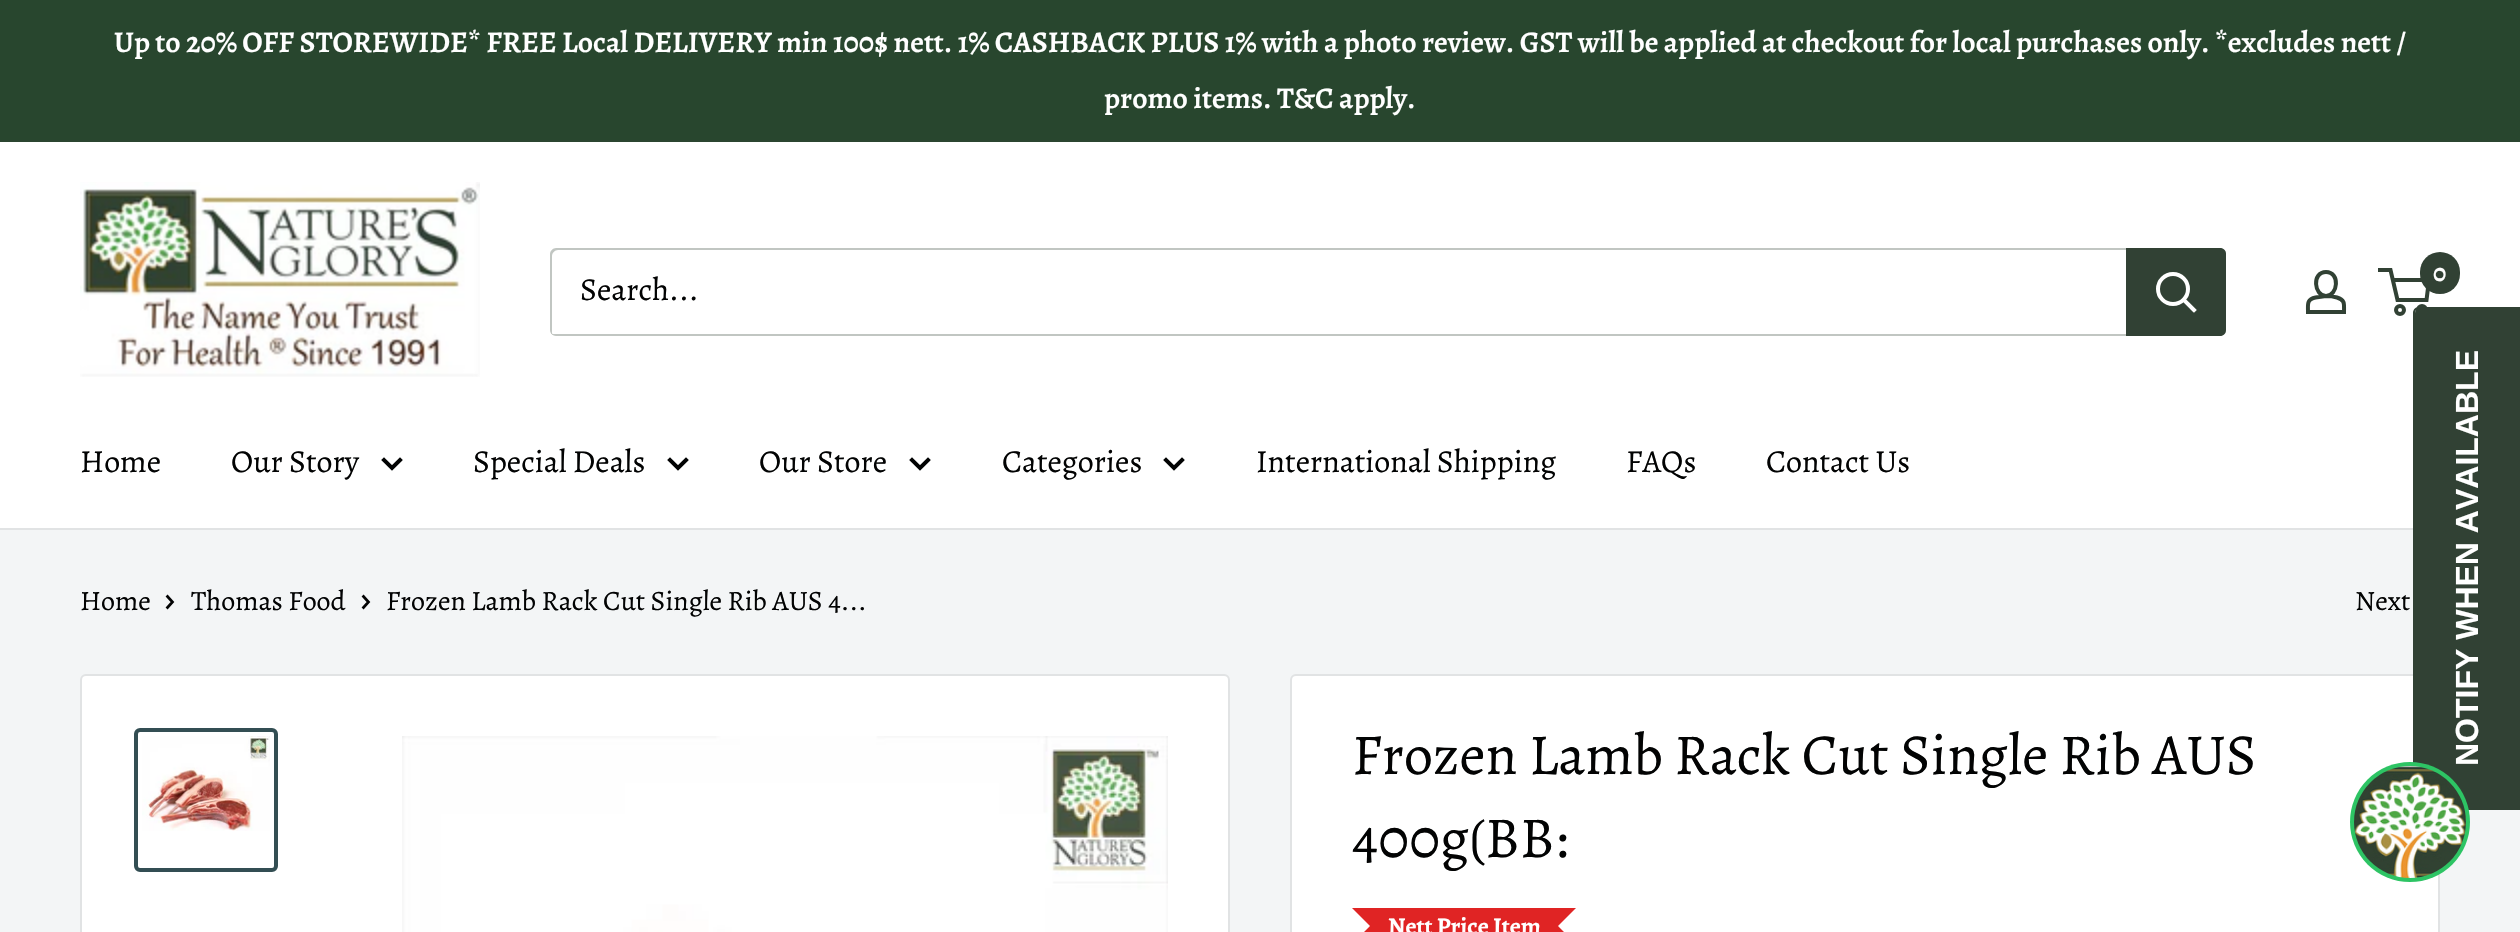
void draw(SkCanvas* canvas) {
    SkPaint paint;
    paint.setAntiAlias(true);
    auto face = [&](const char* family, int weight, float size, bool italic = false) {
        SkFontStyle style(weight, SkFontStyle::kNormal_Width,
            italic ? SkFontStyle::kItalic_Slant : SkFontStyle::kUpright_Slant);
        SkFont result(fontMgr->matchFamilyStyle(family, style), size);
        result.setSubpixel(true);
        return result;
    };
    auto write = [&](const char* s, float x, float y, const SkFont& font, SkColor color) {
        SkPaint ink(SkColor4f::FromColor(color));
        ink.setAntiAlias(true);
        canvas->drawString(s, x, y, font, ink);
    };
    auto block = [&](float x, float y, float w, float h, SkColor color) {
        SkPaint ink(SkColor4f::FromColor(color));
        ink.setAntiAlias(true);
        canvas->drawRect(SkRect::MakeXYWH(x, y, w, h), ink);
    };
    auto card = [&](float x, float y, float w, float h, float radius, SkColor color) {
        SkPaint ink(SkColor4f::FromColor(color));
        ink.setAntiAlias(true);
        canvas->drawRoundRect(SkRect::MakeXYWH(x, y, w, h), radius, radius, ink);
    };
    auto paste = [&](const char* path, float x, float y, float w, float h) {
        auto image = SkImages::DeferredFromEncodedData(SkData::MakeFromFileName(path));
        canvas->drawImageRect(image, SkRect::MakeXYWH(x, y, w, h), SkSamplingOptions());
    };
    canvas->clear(SkColorSetRGB(243, 245, 246));
    block(0, 0, 2520, 140, SkColorSetRGB(40, 70, 46));
    block(0, 140, 2520, 2, SkColorSetRGB(43, 69, 48));
    auto kFont1 = face("Alegreya", 600, 30);
    write("Up to 20% OFF STOREWIDE* FREE Local DELIVERY min 100$ nett. 1% CASHBACK PLUS 1% with a photo review. GST will be applied at checkout for local purchases only. *excludes nett /", 114, 52, kFont1, SK_ColorWHITE);
    write("promo items. T&C apply.", 1104, 108, kFont1, SK_ColorWHITE);
    block(0, 142, 2520, 258, SK_ColorWHITE);
    paste("pic1.png", 80, 182, 400, 195);
    paint.setStyle(SkPaint::kStroke_Style);
    paint.setStrokeWidth(4);
    paint.setColor(SkColorSetRGB(49, 65, 52));
    canvas->drawPath(SkPathBuilder().moveTo(2326, 296).cubicTo(2330, 296, 2333.5f, 296.5f, 2337, 297.5f).cubicTo(2345.5f, 300, 2344, 304.5f, 2344, 312).lineTo(2308, 312).cubicTo(2308, 304, 2306.5f, 299.5f, 2315.5f, 297.5f).close().moveTo(2326, 296).cubicTo(2314, 296, 2311.5f, 272, 2326, 272).cubicTo(2340.5f, 272, 2338, 296, 2326, 296).close().detach(), paint);
    canvas->drawCircle(2400, 310, 4, paint);
    canvas->drawCircle(2422, 310, 4, paint);
    canvas->drawPath(SkPathBuilder().moveTo(2392.5f, 280).lineTo(2429, 280).lineTo(2426.5f, 300).lineTo(2397.5f, 300).lineTo(2390.5f, 270).lineTo(2378, 270).detach(), paint);
    card(2420, 252, 40, 42, 20, SkColorSetRGB(49, 65, 52));
    auto kFont2 = face("Alegreya", 600, 26);
    write("0", 2433, 281, kFont2, SK_ColorWHITE);
    paint.setStyle(SkPaint::kFill_Style);
    paint.setColor(SkColorSetRGB(193, 198, 194));
    canvas->drawPath(SkPathBuilder().moveTo(551, 333).cubicTo(552, 335, 554, 336, 556, 336).lineTo(2220, 336).cubicTo(2223, 336, 2226, 333, 2226, 330).lineTo(2226, 254).cubicTo(2226, 252, 2225, 250, 2223, 249).cubicTo(2224, 250, 2224, 251, 2224, 252).lineTo(2224, 328).cubicTo(2224, 331, 2221, 334, 2218, 334).lineTo(554, 334).cubicTo(553, 334, 552, 334, 551, 333).close().detach(), paint);
    paint.setColor(SkColorSetARGB(77, 49, 65, 52));
    canvas->drawPath(SkPathBuilder().moveTo(558, 250).lineTo(2222, 250).lineTo(2225, 251).cubicTo(2224, 249, 2222, 248, 2220, 248).lineTo(556, 248).cubicTo(553, 248, 550, 251, 550, 254).lineTo(550, 330).cubicTo(550, 332, 551, 334, 553, 335).cubicTo(552, 334, 552, 333, 552, 332).lineTo(552, 256).cubicTo(552, 253, 555, 250, 558, 250).close().detach(), paint);
    auto kFont3 = face("Alegreya", 400, 32);
    write("Search...", 580, 300, kFont3, SkColorSetRGB(2, 3, 3));
    paint.setColor(SkColorSetRGB(49, 65, 52));
    canvas->drawPath(SkPathBuilder().moveTo(2126, 248).lineTo(2220, 248).cubicTo(2223.5f, 248, 2226, 250.5f, 2226, 254).lineTo(2226, 330).cubicTo(2226, 333.5f, 2223.5f, 336, 2220, 336).lineTo(2126, 336).close().detach(), paint);
    paint.setStyle(SkPaint::kStroke_Style);
    paint.setStrokeCap(SkPaint::kSquare_Cap);
    paint.setColor(SK_ColorWHITE);
    canvas->drawPath(SkPathBuilder().moveTo(2194, 310).lineTo(2184, 300).detach(), paint);
    paint.setStrokeCap(SkPaint::kButt_Cap);
    canvas->drawCircle(2173, 289, 15, paint);
    block(0, 400, 2413, 128, SK_ColorWHITE);
    block(0, 528, 2413, 2, SkColorSetRGB(225, 227, 228));
    write("Home", 80, 472, kFont3, SkColorSetRGB(2, 3, 3));
    write("Our Story", 231, 472, kFont3, SkColorSetRGB(2, 3, 3));
    paint.setStrokeCap(SkPaint::kSquare_Cap);
    paint.setColor(SkColorSetRGB(2, 3, 3));
    canvas->drawPath(SkPathBuilder().moveTo(400, 460).lineTo(392, 468).lineTo(384, 460).detach(), paint);
    write("Special Deals", 473, 472, kFont3, SkColorSetRGB(2, 3, 3));
    canvas->drawPath(SkPathBuilder().moveTo(686, 460).lineTo(678, 468).lineTo(670, 460).detach(), paint);
    write("Our Store", 759, 472, kFont3, SkColorSetRGB(2, 3, 3));
    canvas->drawPath(SkPathBuilder().moveTo(928, 460).lineTo(920, 468).lineTo(912, 460).detach(), paint);
    write("Categories", 1002, 472, kFont3, SkColorSetRGB(2, 3, 3));
    canvas->drawPath(SkPathBuilder().moveTo(1182, 460).lineTo(1174, 468).lineTo(1166, 460).detach(), paint);
    write("International Shipping", 1256, 472, kFont3, SkColorSetRGB(2, 3, 3));
    write("FAQs", 1626, 472, kFont3, SkColorSetRGB(2, 3, 3));
    write("Contact Us", 1766, 472, kFont3, SkColorSetRGB(2, 3, 3));
    paint.setStyle(SkPaint::kFill_Style);
    paint.setColor(SK_ColorWHITE);
    canvas->drawRoundRect(SkRect::MakeXYWH(1291, 675, 1148, 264), 5, 5, paint);
    paint.setStyle(SkPaint::kStroke_Style);
    paint.setStrokeWidth(2);
    paint.setStrokeCap(SkPaint::kButt_Cap);
    paint.setColor(SkColorSetRGB(225, 227, 228));
    canvas->drawRoundRect(SkRect::MakeXYWH(1291, 675, 1148, 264), 5, 5, paint);
    paint.setStyle(SkPaint::kFill_Style);
    paint.setColor(SkColorSetRGB(49, 65, 52));
    canvas->drawPath(SkPathBuilder().moveTo(2415, 804).lineTo(2415, 313).cubicTo(2415, 310, 2417, 309, 2419, 309).lineTo(2520, 309).lineTo(2520, 808).lineTo(2419, 808).lineTo(2417, 807).close().detach(), paint);
    canvas->drawPath(SkPathBuilder(SkPathFillType::kEvenOdd).moveTo(2413, 804).lineTo(2413, 313).cubicTo(2413, 309, 2416, 307, 2419, 307).lineTo(2520, 307).lineTo(2520, 810).lineTo(2419, 810).cubicTo(2416, 810, 2413, 807, 2413, 804).close().moveTo(2415, 804).lineTo(2415, 313).cubicTo(2415, 310, 2417, 309, 2419, 309).lineTo(2520, 309).lineTo(2520, 808).lineTo(2419, 808).lineTo(2417, 807).close().detach(), paint);
    auto kFont4 = face("Liberation Sans", 700, 32);
    canvas->save();
    canvas->rotate(-90, 2478, 766);
    write("NOTIFY WHEN AVAILABLE", 2478, 766, kFont4, SK_ColorWHITE);
    canvas->restore();
    auto kFont5 = face("Alegreya", 400, 28);
    write("Home", 80, 610, kFont5, SkColorSetRGB(2, 3, 3));
    paint.setStyle(SkPaint::kStroke_Style);
    paint.setStrokeWidth(2.7f);
    paint.setStrokeCap(SkPaint::kSquare_Cap);
    paint.setColor(SkColorSetRGB(2, 3, 3));
    canvas->drawPath(SkPathBuilder().moveTo(167.5f, 596.5f).lineTo(172.5f, 602).lineTo(167.5f, 607.5f).detach(), paint);
    write("Thomas Food", 191, 610, kFont5, SkColorSetRGB(2, 3, 3));
    canvas->drawPath(SkPathBuilder().moveTo(363.5f, 596.5f).lineTo(368.5f, 602).lineTo(363.5f, 607.5f).detach(), paint);
    write("Frozen Lamb Rack Cut Single Rib AUS 4...", 386, 610, kFont5, SkColorSetRGB(2, 3, 3));
    write("Next", 2355, 610, kFont5, SkColorSetRGB(2, 3, 3));
    paint.setStyle(SkPaint::kFill_Style);
    paint.setColor(SK_ColorWHITE);
    canvas->drawRoundRect(SkRect::MakeXYWH(81, 675, 1148, 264), 5, 5, paint);
    paint.setStyle(SkPaint::kStroke_Style);
    paint.setStrokeWidth(2);
    paint.setStrokeCap(SkPaint::kButt_Cap);
    paint.setColor(SkColorSetRGB(225, 227, 228));
    canvas->drawRoundRect(SkRect::MakeXYWH(81, 675, 1148, 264), 5, 5, paint);
    paint.setStrokeWidth(4);
    paint.setColor(SkColorSetRGB(51, 78, 83));
    canvas->drawRoundRect(SkRect::MakeXYWH(136, 730, 140, 140), 4, 4, paint);
    paste("pic2.png", 142, 736, 128, 95);
    paste("pic3.png", 402, 736, 766, 196);
    auto kFont6 = face("Alegreya", 400, 58);
    write("Frozen Lamb Rack Cut Single Rib AUS", 1352, 774, kFont6, SkColorSetRGB(2, 3, 3));
    write("400g(BB:", 1352, 857, kFont6, SkColorSetRGB(2, 3, 3));
    paint.setStyle(SkPaint::kFill_Style);
    paint.setColor(SkColorSetRGB(224, 36, 36));
    canvas->drawPath(SkPathBuilder().moveTo(1352, 908).lineTo(1370, 908).lineTo(1370, 926).close().moveTo(1370, 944).lineTo(1352, 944).lineTo(1370, 926).close().detach(), paint);
    block(1370, 908, 188, 24, SkColorSetRGB(224, 36, 36));
    auto kFont7 = face("Alegreya", 700, 24);
    write("Nett Price Item", 1388, 934, kFont7, SK_ColorWHITE);
    canvas->drawPath(SkPathBuilder().moveTo(1558, 908).lineTo(1576, 908).lineTo(1558, 926).close().moveTo(1576, 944).lineTo(1558, 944).lineTo(1558, 926).close().detach(), paint);
    paint.setColor(SkColorSetRGB(45, 196, 100));
    canvas->drawCircle(2410, 822, 60, paint);
    paste("pic4.png", 2354, 766, 112, 112);
}
